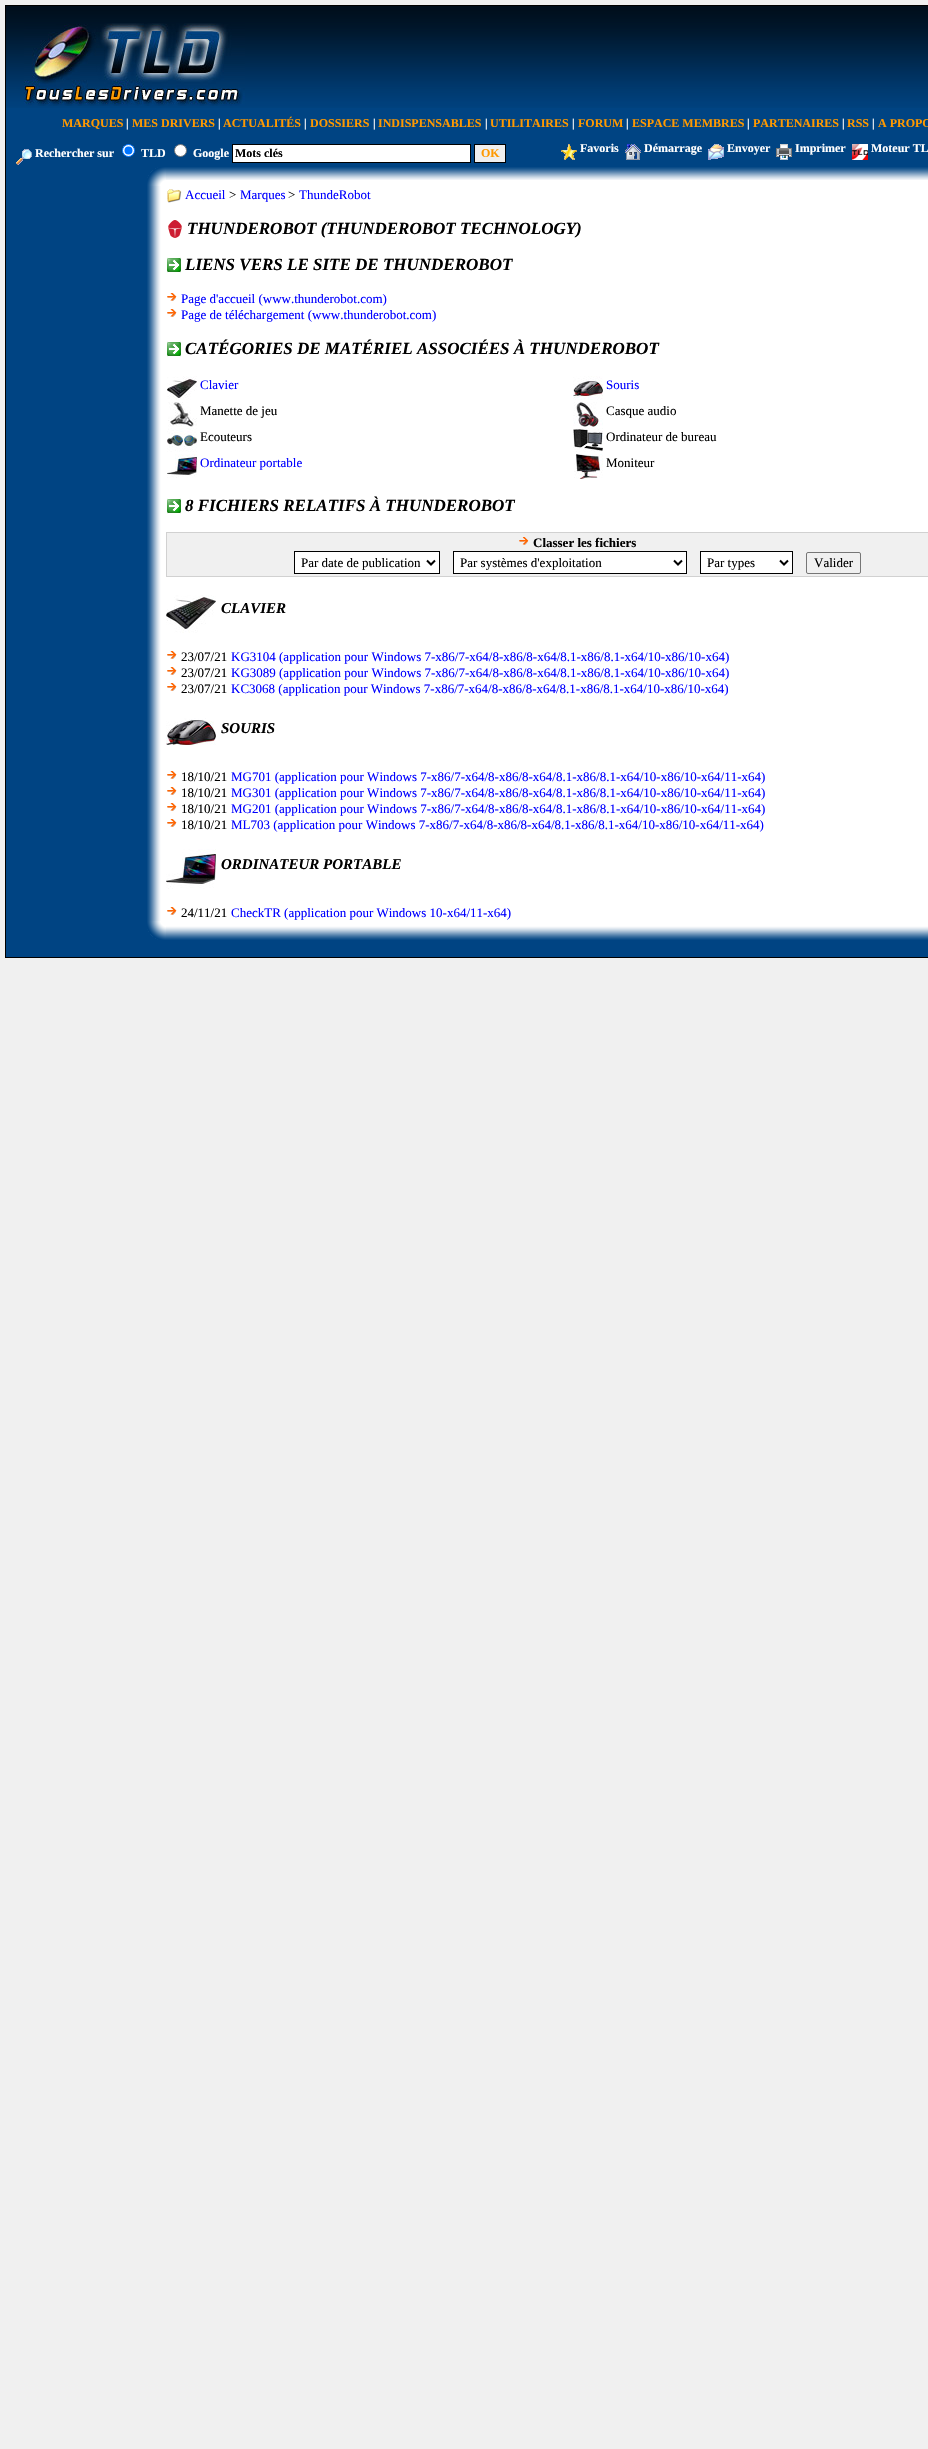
void draw(SkCanvas* canvas) {
    SkPaint paint;
    paint.setAntiAlias(true);
    auto face = [&](const char* family, int weight, float size, bool italic = false) {
        SkFontStyle style(weight, SkFontStyle::kNormal_Width,
            italic ? SkFontStyle::kItalic_Slant : SkFontStyle::kUpright_Slant);
        SkFont result(fontMgr->matchFamilyStyle(family, style), size);
        result.setSubpixel(true);
        return result;
    };
    auto write = [&](const char* s, float x, float y, const SkFont& font, SkColor color) {
        SkPaint ink(SkColor4f::FromColor(color));
        ink.setAntiAlias(true);
        canvas->drawString(s, x, y, font, ink);
    };
    auto block = [&](float x, float y, float w, float h, SkColor color) {
        SkPaint ink(SkColor4f::FromColor(color));
        ink.setAntiAlias(true);
        canvas->drawRect(SkRect::MakeXYWH(x, y, w, h), ink);
    };
    auto paste = [&](const char* path, float x, float y, float w, float h) {
        auto image = SkImages::DeferredFromEncodedData(SkData::MakeFromFileName(path));
        canvas->drawImageRect(image, SkRect::MakeXYWH(x, y, w, h), SkSamplingOptions());
    };
    canvas->clear(SkColorSetRGB(240, 240, 240));
    block(6, 108, 922, 849, SkColorSetRGB(0, 68, 131));
    paint.setStyle(SkPaint::kStroke_Style);
    paint.setStrokeWidth(1);
    paint.setColor(SK_ColorBLACK);
    canvas->drawRect(SkRect::MakeXYWH(5.5f, 5.5f, 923, 952), paint);
    paste("pic1.png", 6, 6, 922, 102);
    paste("pic2.png", 24, 23, 221, 83);
    auto kFont1 = face("Liberation Serif", 700, 12);
    write("MARQUES", 62, 127, kFont1, SkColorSetRGB(255, 153, 0));
    write("|", 126, 127, kFont1, SK_ColorWHITE);
    write("MES DRIVERS", 132, 127, kFont1, SkColorSetRGB(255, 153, 0));
    write("|", 218, 127, kFont1, SK_ColorWHITE);
    write("ACTUALITÉS", 223, 127, kFont1, SkColorSetRGB(255, 153, 0));
    write("|", 304, 127, kFont1, SK_ColorWHITE);
    write("DOSSIERS", 310, 127, kFont1, SkColorSetRGB(255, 153, 0));
    write("|", 373, 127, kFont1, SK_ColorWHITE);
    write("INDISPENSABLES", 378, 127, kFont1, SkColorSetRGB(255, 153, 0));
    write("|", 485, 127, kFont1, SK_ColorWHITE);
    write("UTILITAIRES", 490, 127, kFont1, SkColorSetRGB(255, 153, 0));
    write("|", 572, 127, kFont1, SK_ColorWHITE);
    write("FORUM", 578, 127, kFont1, SkColorSetRGB(255, 153, 0));
    write("|", 626, 127, kFont1, SK_ColorWHITE);
    write("ESPACE MEMBRES", 632, 127, kFont1, SkColorSetRGB(255, 153, 0));
    write("|", 747, 127, kFont1, SK_ColorWHITE);
    write("PARTENAIRES", 753, 127, kFont1, SkColorSetRGB(255, 153, 0));
    write("|", 842, 127, kFont1, SK_ColorWHITE);
    write("RSS", 847, 127, kFont1, SkColorSetRGB(255, 153, 0));
    write("|", 872, 127, kFont1, SK_ColorWHITE);
    write("A PROPO", 878, 127, kFont1, SkColorSetRGB(255, 153, 0));
    paste("pic3.png", 16, 149, 16, 16);
    write("Rechercher sur", 35, 157, kFont1, SK_ColorWHITE);
    paint.setStyle(SkPaint::kFill_Style);
    paint.setColor(SK_ColorWHITE);
    canvas->drawCircle(128.5f, 150.5f, 6, paint);
    paint.setStyle(SkPaint::kStroke_Style);
    paint.setColor(SkColorSetRGB(0, 117, 255));
    canvas->drawCircle(128.5f, 150.5f, 6, paint);
    paint.setStyle(SkPaint::kFill_Style);
    canvas->drawCircle(128.5f, 150.5f, 4, paint);
    write("TLD", 141, 157, kFont1, SK_ColorWHITE);
    paint.setColor(SK_ColorWHITE);
    canvas->drawCircle(180.5f, 150.5f, 6, paint);
    paint.setStyle(SkPaint::kStroke_Style);
    paint.setColor(SkColorSetRGB(118, 118, 118));
    canvas->drawCircle(180.5f, 150.5f, 6, paint);
    write("Google", 193, 157, kFont1, SK_ColorWHITE);
    paint.setStyle(SkPaint::kFill_Style);
    paint.setColor(SK_ColorWHITE);
    canvas->drawRect(SkRect::MakeXYWH(232.5f, 144.5f, 238, 18), paint);
    paint.setStyle(SkPaint::kStroke_Style);
    paint.setColor(SK_ColorBLACK);
    canvas->drawRect(SkRect::MakeXYWH(232.5f, 144.5f, 238, 18), paint);
    write("Mots clés", 235, 157, kFont1, SK_ColorBLACK);
    paint.setStyle(SkPaint::kFill_Style);
    paint.setColor(SkColorSetRGB(239, 239, 239));
    canvas->drawRect(SkRect::MakeXYWH(474.5f, 144.5f, 31, 18), paint);
    paint.setStyle(SkPaint::kStroke_Style);
    paint.setColor(SK_ColorBLACK);
    canvas->drawRect(SkRect::MakeXYWH(474.5f, 144.5f, 31, 18), paint);
    write("OK", 481, 157, kFont1, SkColorSetRGB(255, 153, 0));
    paste("pic4.png", 561, 144, 16, 16);
    write("Favoris", 580, 152, kFont1, SK_ColorWHITE);
    paste("pic5.png", 625, 144, 16, 16);
    write("Démarrage", 644, 152, kFont1, SK_ColorWHITE);
    paste("pic6.png", 708, 144, 16, 16);
    write("Envoyer", 727, 152, kFont1, SK_ColorWHITE);
    paste("pic7.png", 776, 144, 16, 16);
    write("Imprimer", 795, 152, kFont1, SK_ColorWHITE);
    paste("pic8.png", 852, 144, 16, 16);
    write("Moteur TL", 871, 152, kFont1, SK_ColorWHITE);
    paste("pic9.png", 147, 167, 19, 19);
    block(166, 180, 762, 741, SK_ColorWHITE);
    paste("pic10.png", 166, 166, 762, 14);
    paste("pic11.png", 147, 186, 19, 735);
    paste("pic12.png", 167, 189, 15, 14);
    auto kFont2 = face("Liberation Serif", 400, 13);
    write("Accueil", 185, 199, kFont2, SkColorSetRGB(0, 0, 255));
    write(">", 229, 199, kFont2, SK_ColorBLACK);
    write("Marques", 240, 199, kFont2, SkColorSetRGB(0, 0, 255));
    write(">", 288, 199, kFont2, SK_ColorBLACK);
    write("ThundeRobot", 299, 199, kFont2, SkColorSetRGB(0, 0, 255));
    paste("pic13.png", 168, 220, 14, 18);
    auto kFont3 = face("Liberation Serif", 700, 17, true);
    write("THUNDEROBOT (THUNDEROBOT TECHNOLOGY)", 187, 234, kFont3, SK_ColorBLACK);
    paste("pic14.png", 167, 257, 14, 16);
    write("LIENS VERS LE SITE DE THUNDEROBOT", 185, 270, kFont3, SK_ColorBLACK);
    paste("pic15.png", 167, 293, 10, 8);
    write("Page d'accueil (www.thunderobot.com)", 181, 303, kFont2, SkColorSetRGB(0, 0, 255));
    paste("pic15.png", 167, 309, 10, 8);
    write("Page de téléchargement (www.thunderobot.com)", 181, 319, kFont2, SkColorSetRGB(0, 0, 255));
    paste("pic14.png", 167, 341, 14, 16);
    write("CATÉGORIES DE MATÉRIEL ASSOCIÉES À THUNDEROBOT", 185, 354, kFont3, SK_ColorBLACK);
    paste("pic16.png", 167, 376, 30, 24);
    write("Clavier", 200, 389, kFont2, SkColorSetRGB(0, 0, 255));
    paste("pic17.png", 573, 376, 30, 24);
    write("Souris", 606, 389, kFont2, SkColorSetRGB(0, 0, 255));
    paste("pic18.png", 168, 402, 29, 25);
    write("Manette de jeu", 200, 415, kFont2, SK_ColorBLACK);
    paste("pic19.png", 573, 402, 30, 25);
    write("Casque audio", 606, 415, kFont2, SK_ColorBLACK);
    paste("pic20.png", 167, 428, 30, 24);
    write("Ecouteurs", 200, 441, kFont2, SK_ColorBLACK);
    paste("pic21.png", 573, 428, 30, 24);
    write("Ordinateur de bureau", 606, 441, kFont2, SK_ColorBLACK);
    paste("pic22.png", 167, 454, 30, 24);
    write("Ordinateur portable", 200, 467, kFont2, SkColorSetRGB(0, 0, 255));
    paste("pic23.png", 574, 454, 29, 25);
    write("Moniteur", 606, 467, kFont2, SK_ColorBLACK);
    paste("pic14.png", 167, 498, 14, 16);
    write("8 FICHIERS RELATIFS À THUNDEROBOT", 185, 511, kFont3, SK_ColorBLACK);
    paint.setStyle(SkPaint::kFill_Style);
    paint.setColor(SkColorSetRGB(240, 240, 240));
    canvas->drawRect(SkRect::MakeXYWH(166.5f, 532.5f, 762, 44), paint);
    paint.setStyle(SkPaint::kStroke_Style);
    paint.setColor(SkColorSetRGB(209, 209, 209));
    canvas->drawRect(SkRect::MakeXYWH(166.5f, 532.5f, 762, 44), paint);
    paste("pic24.png", 519, 537, 10, 8);
    auto kFont4 = face("Liberation Serif", 700, 13);
    write("Classer les fichiers", 533, 547, kFont4, SK_ColorBLACK);
    paint.setStyle(SkPaint::kFill_Style);
    paint.setColor(SK_ColorWHITE);
    canvas->drawRect(SkRect::MakeXYWH(294.5f, 551.5f, 145, 22), paint);
    paint.setStyle(SkPaint::kStroke_Style);
    paint.setColor(SK_ColorBLACK);
    canvas->drawRect(SkRect::MakeXYWH(294.5f, 551.5f, 145, 22), paint);
    paint.setStrokeWidth(2);
    canvas->drawPath(SkPathBuilder().moveTo(427, 560.5f).lineTo(431, 564.5f).lineTo(435, 560.5f).detach(), paint);
    write("Par date de publication", 301, 567, kFont2, SK_ColorBLACK);
    paint.setStyle(SkPaint::kFill_Style);
    paint.setColor(SK_ColorWHITE);
    canvas->drawRect(SkRect::MakeXYWH(453.5f, 551.5f, 233, 22), paint);
    paint.setStyle(SkPaint::kStroke_Style);
    paint.setStrokeWidth(1);
    paint.setColor(SK_ColorBLACK);
    canvas->drawRect(SkRect::MakeXYWH(453.5f, 551.5f, 233, 22), paint);
    paint.setStrokeWidth(2);
    canvas->drawPath(SkPathBuilder().moveTo(674, 560.5f).lineTo(678, 564.5f).lineTo(682, 560.5f).detach(), paint);
    write("Par systèmes d'exploitation", 460, 567, kFont2, SK_ColorBLACK);
    paint.setStyle(SkPaint::kFill_Style);
    paint.setColor(SK_ColorWHITE);
    canvas->drawRect(SkRect::MakeXYWH(700.5f, 551.5f, 92, 22), paint);
    paint.setStyle(SkPaint::kStroke_Style);
    paint.setStrokeWidth(1);
    paint.setColor(SK_ColorBLACK);
    canvas->drawRect(SkRect::MakeXYWH(700.5f, 551.5f, 92, 22), paint);
    paint.setStrokeWidth(2);
    canvas->drawPath(SkPathBuilder().moveTo(780, 560.5f).lineTo(784, 564.5f).lineTo(788, 560.5f).detach(), paint);
    write("Par types", 707, 567, kFont2, SK_ColorBLACK);
    paint.setStrokeWidth(1);
    paint.setColor(SkColorSetRGB(118, 118, 118));
    canvas->drawRoundRect(SkRect::MakeXYWH(806.5f, 552.5f, 54, 21), 1.5f, 1.5f, paint);
    write("Valider", 814, 567, kFont2, SK_ColorBLACK);
    paste("pic25.png", 166, 595, 50, 38);
    auto kFont5 = face("Liberation Serif", 700, 15, true);
    write("CLAVIER", 221, 613, kFont5, SK_ColorBLACK);
    paste("pic15.png", 167, 651, 10, 8);
    write("23/07/21", 181, 661, kFont2, SK_ColorBLACK);
    write("KG3104 (application pour Windows 7-x86/7-x64/8-x86/8-x64/8.1-x86/8.1-x64/10-x86/10-x64)", 231, 661, kFont2, SkColorSetRGB(0, 0, 255));
    paste("pic15.png", 167, 667, 10, 8);
    write("23/07/21", 181, 677, kFont2, SK_ColorBLACK);
    write("KG3089 (application pour Windows 7-x86/7-x64/8-x86/8-x64/8.1-x86/8.1-x64/10-x86/10-x64)", 231, 677, kFont2, SkColorSetRGB(0, 0, 255));
    paste("pic15.png", 167, 683, 10, 8);
    write("23/07/21", 181, 693, kFont2, SK_ColorBLACK);
    write("KC3068 (application pour Windows 7-x86/7-x64/8-x86/8-x64/8.1-x86/8.1-x64/10-x86/10-x64)", 231, 693, kFont2, SkColorSetRGB(0, 0, 255));
    paste("pic26.png", 166, 718, 50, 27);
    write("SOURIS", 221, 733, kFont5, SK_ColorBLACK);
    paste("pic15.png", 167, 771, 10, 8);
    write("18/10/21", 181, 781, kFont2, SK_ColorBLACK);
    write("MG701 (application pour Windows 7-x86/7-x64/8-x86/8-x64/8.1-x86/8.1-x64/10-x86/10-x64/11-x64)", 231, 781, kFont2, SkColorSetRGB(0, 0, 255));
    paste("pic15.png", 167, 787, 10, 8);
    write("18/10/21", 181, 797, kFont2, SK_ColorBLACK);
    write("MG301 (application pour Windows 7-x86/7-x64/8-x86/8-x64/8.1-x86/8.1-x64/10-x86/10-x64/11-x64)", 231, 797, kFont2, SkColorSetRGB(0, 0, 255));
    paste("pic15.png", 167, 803, 10, 8);
    write("18/10/21", 181, 813, kFont2, SK_ColorBLACK);
    write("MG201 (application pour Windows 7-x86/7-x64/8-x86/8-x64/8.1-x86/8.1-x64/10-x86/10-x64/11-x64)", 231, 813, kFont2, SkColorSetRGB(0, 0, 255));
    paste("pic15.png", 167, 819, 10, 8);
    write("18/10/21", 181, 829, kFont2, SK_ColorBLACK);
    write("ML703 (application pour Windows 7-x86/7-x64/8-x86/8-x64/8.1-x86/8.1-x64/10-x86/10-x64/11-x64)", 231, 829, kFont2, SkColorSetRGB(0, 0, 255));
    paste("pic27.png", 166, 849, 50, 40);
    write("ORDINATEUR PORTABLE", 221, 869, kFont5, SK_ColorBLACK);
    paste("pic15.png", 167, 907, 10, 8);
    write("24/11/21", 181, 917, kFont2, SK_ColorBLACK);
    write("CheckTR (application pour Windows 10-x64/11-x64)", 231, 917, kFont2, SkColorSetRGB(0, 0, 255));
    paste("pic28.png", 147, 921, 19, 19);
    paste("pic29.png", 166, 921, 762, 19);
}
